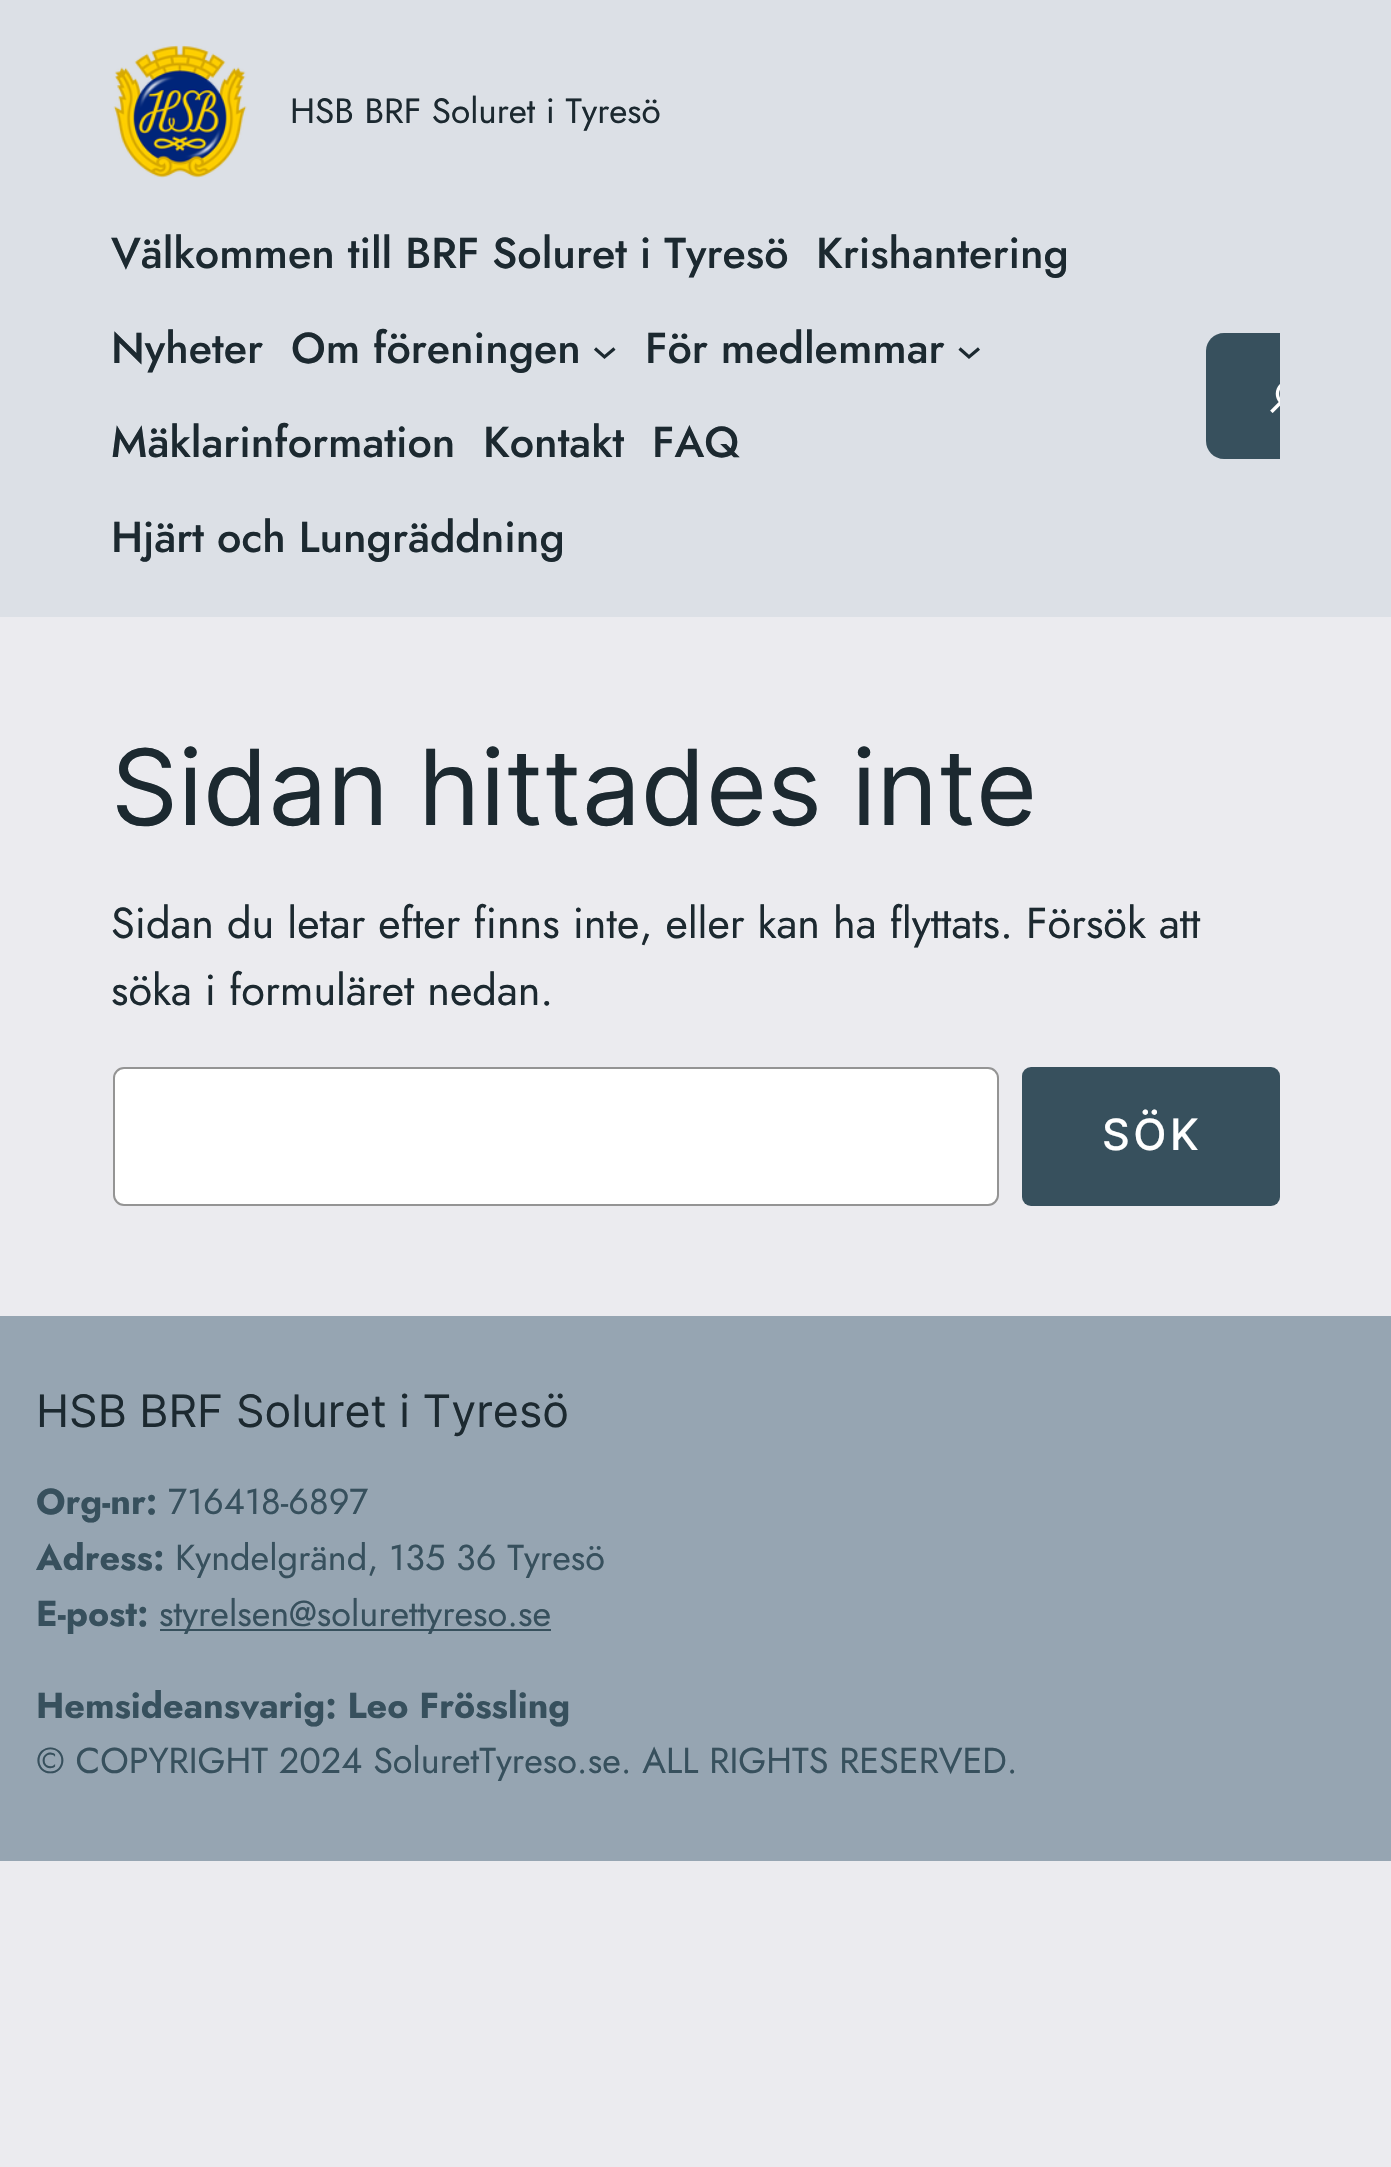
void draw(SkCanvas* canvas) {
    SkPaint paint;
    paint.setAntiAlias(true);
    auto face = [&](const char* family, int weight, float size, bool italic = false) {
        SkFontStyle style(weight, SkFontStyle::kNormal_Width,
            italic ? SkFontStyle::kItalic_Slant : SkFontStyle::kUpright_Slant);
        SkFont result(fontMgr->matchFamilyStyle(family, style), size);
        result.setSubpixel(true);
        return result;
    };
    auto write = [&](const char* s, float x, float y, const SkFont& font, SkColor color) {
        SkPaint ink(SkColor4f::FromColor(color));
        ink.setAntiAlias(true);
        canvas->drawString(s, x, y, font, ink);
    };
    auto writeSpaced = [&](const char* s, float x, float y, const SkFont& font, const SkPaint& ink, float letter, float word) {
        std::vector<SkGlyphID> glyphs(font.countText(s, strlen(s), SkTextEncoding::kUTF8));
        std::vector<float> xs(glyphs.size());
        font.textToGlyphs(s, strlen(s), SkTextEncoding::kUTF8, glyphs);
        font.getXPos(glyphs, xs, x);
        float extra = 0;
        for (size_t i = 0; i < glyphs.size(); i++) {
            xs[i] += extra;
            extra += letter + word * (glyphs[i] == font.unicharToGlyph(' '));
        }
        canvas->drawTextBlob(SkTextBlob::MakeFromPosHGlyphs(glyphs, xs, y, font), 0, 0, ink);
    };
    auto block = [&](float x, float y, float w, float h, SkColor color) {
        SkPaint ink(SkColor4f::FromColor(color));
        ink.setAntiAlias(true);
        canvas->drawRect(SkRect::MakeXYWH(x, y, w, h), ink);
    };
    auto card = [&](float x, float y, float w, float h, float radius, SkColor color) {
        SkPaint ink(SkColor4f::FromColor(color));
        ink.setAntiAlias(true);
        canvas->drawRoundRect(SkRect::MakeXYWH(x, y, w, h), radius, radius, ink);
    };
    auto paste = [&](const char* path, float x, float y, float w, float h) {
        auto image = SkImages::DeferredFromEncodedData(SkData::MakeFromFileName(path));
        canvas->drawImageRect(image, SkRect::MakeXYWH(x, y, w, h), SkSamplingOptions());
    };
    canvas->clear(SkColorSetRGB(235, 235, 239));
    block(0, 0, 1391, 617, SkColorSetRGB(220, 224, 230));
    paste("pic1.png", 113, 45, 134, 133);
    auto kFont1 = face("Jost", 400, 35.1f);
    write("HSB BRF Soluret i Tyresö", 290, 123, kFont1, SkColorSetRGB(28, 41, 48));
    auto kFont2 = face("Jost", 500, 43.2f);
    write("Välkommen till BRF Soluret i Tyresö", 111, 268, kFont2, SkColorSetRGB(28, 41, 48));
    write("Krishantering", 816, 268, kFont2, SkColorSetRGB(28, 41, 48));
    write("Nyheter", 111, 363, kFont2, SkColorSetRGB(28, 41, 48));
    write("Om föreningen", 291, 363, kFont2, SkColorSetRGB(28, 41, 48));
    paint.setStyle(SkPaint::kStroke_Style);
    paint.setStrokeWidth(3.2f);
    paint.setColor(SkColorSetRGB(28, 41, 48));
    canvas->drawPath(SkPathBuilder().moveTo(595, 348.5f).lineTo(604.5f, 357).lineTo(614.5f, 348.5f).detach(), paint);
    write("För medlemmar", 645, 363, kFont2, SkColorSetRGB(28, 41, 48));
    canvas->drawPath(SkPathBuilder().moveTo(959.5f, 348.5f).lineTo(969, 357).lineTo(979, 348.5f).detach(), paint);
    write("Mäklarinformation", 111, 457, kFont2, SkColorSetRGB(28, 41, 48));
    write("Kontakt", 483, 457, kFont2, SkColorSetRGB(28, 41, 48));
    write("FAQ", 652, 457, kFont2, SkColorSetRGB(28, 41, 48));
    write("Hjärt och Lungräddning", 111, 552, kFont2, SkColorSetRGB(28, 41, 48));
    paint.setStyle(SkPaint::kFill_Style);
    paint.setColor(SkColorSetRGB(55, 80, 93));
    canvas->drawPath(SkPathBuilder().moveTo(1224, 333).lineTo(1280, 333).lineTo(1280, 459).lineTo(1224, 459).cubicTo(1214, 459, 1206, 451, 1206, 441).lineTo(1206, 351).cubicTo(1206, 341, 1214, 333, 1224, 333).close().detach(), paint);
    paste("pic2.png", 1270, 384, 10, 29);
    auto kFont3 = face("Inter", 400, 105);
    write("Sidan hittades inte", 111, 825, kFont3, SkColorSetRGB(28, 41, 48));
    auto kFont4 = face("Jost", 400, 43.2f);
    write("Sidan du letar efter finns inte, eller kan ha flyttats. Försök att", 111, 938, kFont4, SkColorSetRGB(28, 41, 48));
    write("söka i formuläret nedan.", 111, 1005, kFont4, SkColorSetRGB(28, 41, 48));
    paint.setColor(SK_ColorWHITE);
    canvas->drawRoundRect(SkRect::MakeXYWH(114, 1068, 884, 137), 10, 10, paint);
    paint.setStyle(SkPaint::kStroke_Style);
    paint.setStrokeWidth(2);
    paint.setColor(SkColorSetRGB(148, 148, 148));
    canvas->drawRoundRect(SkRect::MakeXYWH(114, 1068, 884, 137), 10, 10, paint);
    card(1022, 1067, 258, 139, 9, SkColorSetRGB(55, 80, 93));
    auto kFont5 = face("Inter", 500, 43.2f);
    paint.setStyle(SkPaint::kFill_Style);
    paint.setColor(SK_ColorWHITE);
    writeSpaced("SÖK", 1102, 1150, kFont5, paint, 3.5f, 0);
    block(0, 1316, 1391, 545, SkColorSetRGB(150, 165, 178));
    auto kFont6 = face("Inter", 400, 44.75f);
    write("HSB BRF Soluret i Tyresö", 36, 1427, kFont6, SkColorSetRGB(28, 41, 48));
    auto kFont7 = face("Jost", 700, 36);
    write("Org-nr:", 36, 1514, kFont7, SkColorSetRGB(55, 80, 93));
    auto kFont8 = face("Jost", 400, 36);
    write("716418-6897", 168, 1514, kFont8, SkColorSetRGB(55, 80, 93));
    write("Adress:", 36, 1570, kFont7, SkColorSetRGB(55, 80, 93));
    write("Kyndelgränd, 135 36 Tyresö", 175, 1570, kFont8, SkColorSetRGB(55, 80, 93));
    write("E-post:", 36, 1626, kFont7, SkColorSetRGB(55, 80, 93));
    block(160, 1629, 391, 2, SkColorSetRGB(55, 80, 93));
    write("styrelsen@solurettyreso.se", 159, 1626, kFont8, SkColorSetRGB(55, 80, 93));
    write("Hemsideansvarig: Leo Frössling", 36, 1718, kFont7, SkColorSetRGB(55, 80, 93));
    write("© COPYRIGHT 2024 SoluretTyreso.se. ALL RIGHTS RESERVED.", 36, 1773, kFont8, SkColorSetRGB(55, 80, 93));
}
